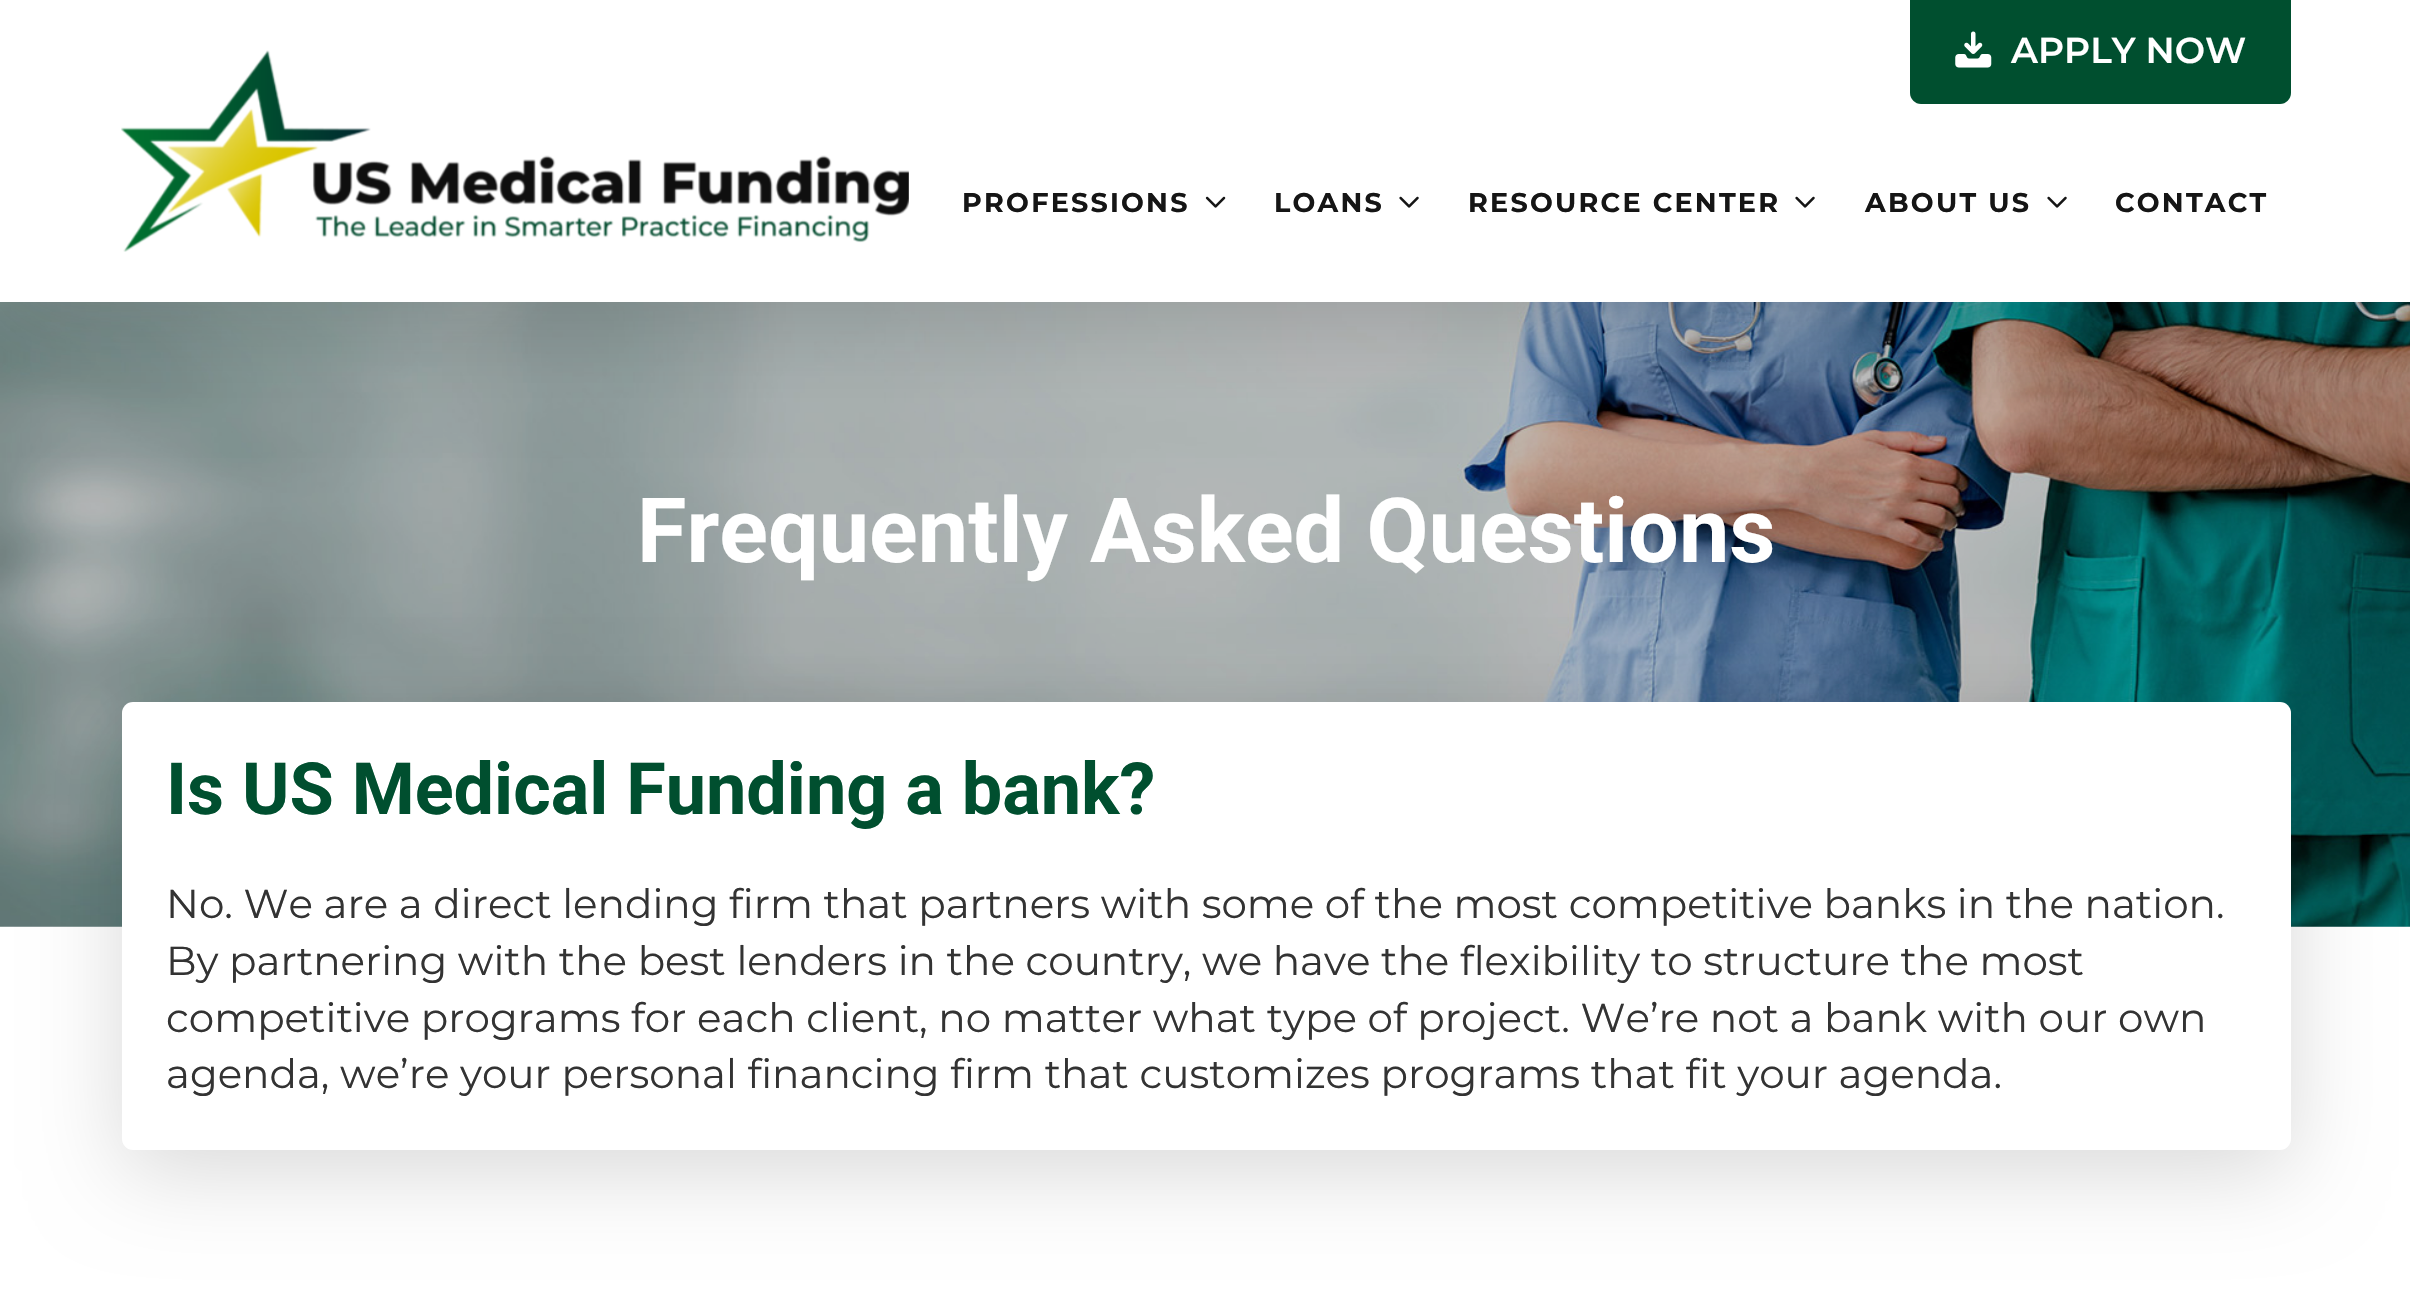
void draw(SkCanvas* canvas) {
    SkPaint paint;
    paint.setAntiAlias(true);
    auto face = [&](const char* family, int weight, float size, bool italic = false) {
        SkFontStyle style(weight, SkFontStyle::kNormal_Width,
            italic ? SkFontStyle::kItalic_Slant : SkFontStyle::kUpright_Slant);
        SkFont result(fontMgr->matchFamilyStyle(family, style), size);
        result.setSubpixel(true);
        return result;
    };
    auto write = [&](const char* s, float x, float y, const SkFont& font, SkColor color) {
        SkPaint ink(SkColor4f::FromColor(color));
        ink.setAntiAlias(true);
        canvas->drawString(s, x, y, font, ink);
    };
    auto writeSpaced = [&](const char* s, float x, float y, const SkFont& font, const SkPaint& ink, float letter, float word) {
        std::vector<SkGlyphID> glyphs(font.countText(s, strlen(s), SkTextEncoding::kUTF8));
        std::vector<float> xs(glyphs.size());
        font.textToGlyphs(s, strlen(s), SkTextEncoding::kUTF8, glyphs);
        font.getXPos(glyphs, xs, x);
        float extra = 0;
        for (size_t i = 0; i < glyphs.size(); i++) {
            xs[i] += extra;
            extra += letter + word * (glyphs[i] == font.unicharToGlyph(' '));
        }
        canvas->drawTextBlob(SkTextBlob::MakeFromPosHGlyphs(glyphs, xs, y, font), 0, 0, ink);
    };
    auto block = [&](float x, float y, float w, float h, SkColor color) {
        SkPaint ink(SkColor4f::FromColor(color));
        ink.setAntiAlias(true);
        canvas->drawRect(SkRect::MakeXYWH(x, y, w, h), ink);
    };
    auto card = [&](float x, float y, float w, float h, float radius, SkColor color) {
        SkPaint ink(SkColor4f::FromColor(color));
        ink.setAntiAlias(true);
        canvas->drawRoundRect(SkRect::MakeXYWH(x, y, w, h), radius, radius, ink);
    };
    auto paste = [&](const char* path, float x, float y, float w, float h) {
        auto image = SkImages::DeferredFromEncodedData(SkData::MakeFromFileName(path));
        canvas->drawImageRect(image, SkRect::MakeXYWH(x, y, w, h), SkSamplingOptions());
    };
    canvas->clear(SK_ColorWHITE);
    paste("pic5.png", 0, 302, 2410, 625);
    paint.setColor(SkColorSetARGB(38, 0, 0, 0));
    paint.setMaskFilter(SkMaskFilter::MakeBlur(kNormal_SkBlurStyle, 45));
    canvas->drawRect(SkRect::MakeXYWH(0, 23, 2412, 301), paint);
    paint.setMaskFilter(nullptr);
    block(0, 0, 2410, 302, SK_ColorWHITE);
    paste("pic1.png", 121, 50, 788, 202);
    paint.setColor(SkColorSetRGB(0, 79, 47));
    canvas->drawPath(SkPathBuilder().moveTo(1910, 0).lineTo(2291, 0).lineTo(2291, 93).cubicTo(2291, 99, 2286, 104, 2280, 104).lineTo(1921, 104).cubicTo(1915, 104, 1910, 99, 1910, 93).close().detach(), paint);
    paste("pic2.png", 1955, 31, 37, 37);
    auto kFont1 = face("Montserrat", 600, 36);
    write("APPLY NOW", 2011, 63, kFont1, SK_ColorWHITE);
    auto kFont2 = face("Montserrat", 700, 27);
    paint.setColor(SkColorSetRGB(21, 21, 21));
    writeSpaced("PROFESSIONS", 962, 212, kFont2, paint, 2.25f, 0);
    paste("pic3.png", 1205, 196, 21, 12);
    writeSpaced("LOANS", 1274, 212, kFont2, paint, 2.25f, 0);
    paste("pic4.png", 1399, 196, 20, 12);
    writeSpaced("RESOURCE CENTER", 1468, 212, kFont2, paint, 2.25f, 0);
    paste("pic4.png", 1795, 196, 20, 12);
    writeSpaced("ABOUT US", 1865, 212, kFont2, paint, 2.25f, 0);
    paste("pic4.png", 2047, 196, 20, 12);
    writeSpaced("CONTACT", 2115, 212, kFont2, paint, 2.25f, 0);
    auto kFont3 = face("Roboto", 700, 90);
    write("Frequently Asked Questions", 637, 562, kFont3, SK_ColorWHITE);
    paint.setColor(SkColorSetARGB(38, 0, 0, 0));
    paint.setMaskFilter(SkMaskFilter::MakeBlur(kNormal_SkBlurStyle, 45));
    canvas->drawRoundRect(SkRect::MakeXYWH(122, 725, 2169, 447), 11, 11, paint);
    paint.setMaskFilter(nullptr);
    card(122, 702, 2169, 448, 11, SK_ColorWHITE);
    auto kFont4 = face("Roboto", 700, 72);
    write("Is US Medical Funding a bank?", 166, 814, kFont4, SkColorSetRGB(0, 79, 47));
    auto kFont5 = face("Montserrat", 400, 40.5f);
    write("No. We are a direct lending firm that partners with some of the most competitive banks in the nation.", 166, 918, kFont5, SkColorSetRGB(51, 51, 51));
    write("By partnering with the best lenders in the country, we have the flexibility to structure the most", 166, 975, kFont5, SkColorSetRGB(51, 51, 51));
    write("competitive programs for each client, no matter what type of project. We’re not a bank with our own", 166, 1032, kFont5, SkColorSetRGB(51, 51, 51));
    write("agenda, we’re your personal financing firm that customizes programs that fit your agenda.", 166, 1088, kFont5, SkColorSetRGB(51, 51, 51));
}
